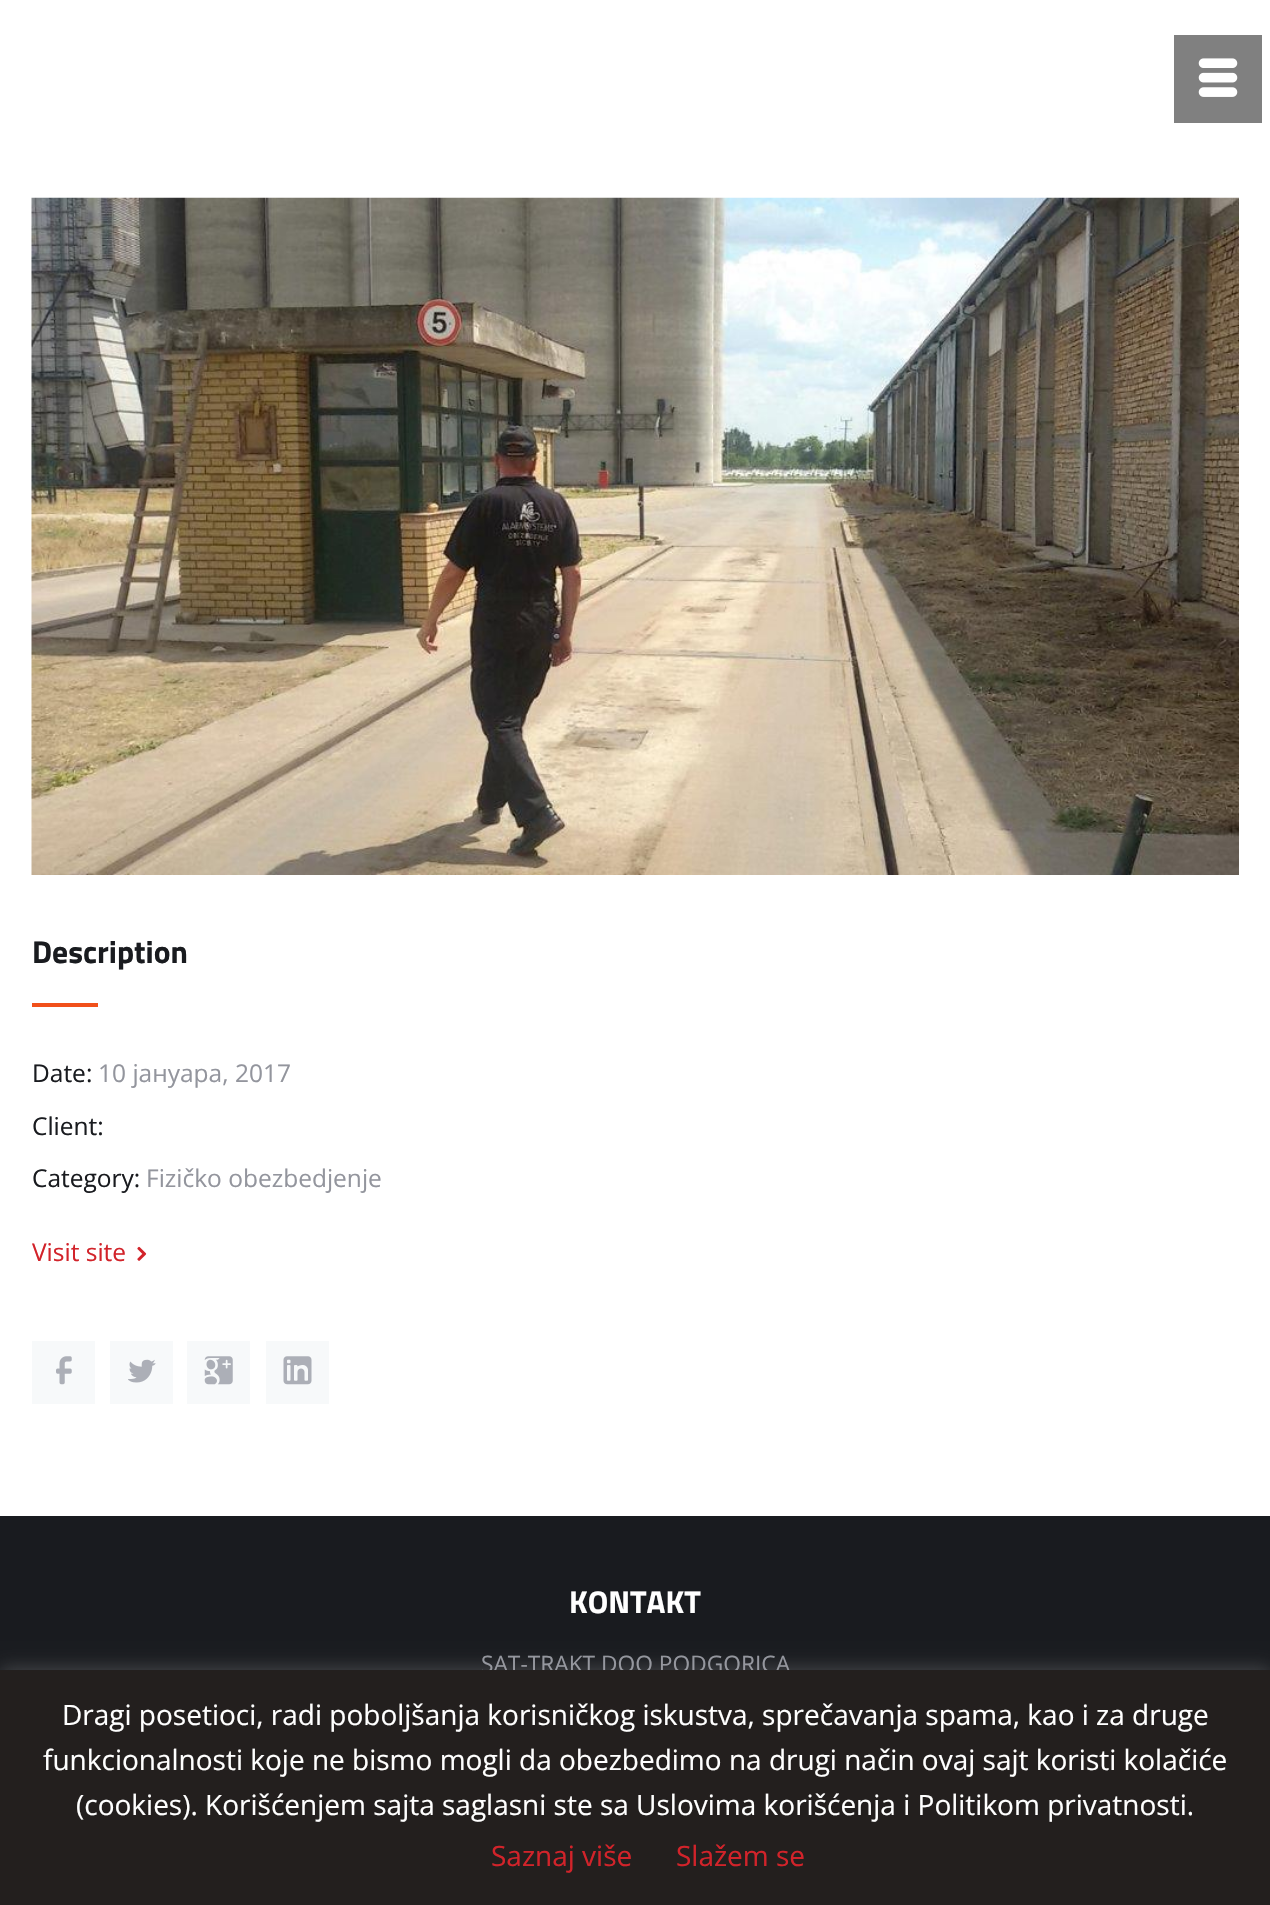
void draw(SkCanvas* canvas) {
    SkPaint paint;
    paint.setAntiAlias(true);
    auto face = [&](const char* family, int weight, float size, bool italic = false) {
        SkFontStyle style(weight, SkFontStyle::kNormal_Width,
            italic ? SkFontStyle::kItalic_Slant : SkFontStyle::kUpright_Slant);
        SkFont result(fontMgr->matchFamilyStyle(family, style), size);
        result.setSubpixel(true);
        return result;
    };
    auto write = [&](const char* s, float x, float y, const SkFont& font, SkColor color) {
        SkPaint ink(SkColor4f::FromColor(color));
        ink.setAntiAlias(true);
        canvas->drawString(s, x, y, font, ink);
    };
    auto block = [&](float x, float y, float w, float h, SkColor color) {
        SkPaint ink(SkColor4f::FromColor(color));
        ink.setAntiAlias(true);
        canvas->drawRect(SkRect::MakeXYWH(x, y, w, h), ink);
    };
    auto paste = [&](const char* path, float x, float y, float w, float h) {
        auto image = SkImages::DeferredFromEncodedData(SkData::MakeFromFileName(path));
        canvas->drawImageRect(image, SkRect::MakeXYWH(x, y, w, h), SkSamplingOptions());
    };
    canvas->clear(SK_ColorWHITE);
    block(1174, 35, 88, 88, SkColorSetRGB(128, 128, 128));
    paste("pic1.png", 1198, 58, 40, 39);
    paste("pic2.png", 31, 197, 1208, 678);
    auto kFont1 = face("Titillium Web", 700, 31.5f);
    write("Description", 32, 963, kFont1, SkColorSetRGB(25, 27, 31));
    block(32, 1003, 66, 4, SkColorSetRGB(241, 80, 26));
    auto kFont2 = face("Open Sans", 400, 24.5f);
    write("Date:", 32, 1082, kFont2, SkColorSetRGB(25, 27, 31));
    write("10 јануара, 2017", 98, 1082, kFont2, SkColorSetRGB(147, 149, 157));
    write("Client:", 32, 1135, kFont2, SkColorSetRGB(25, 27, 31));
    write("Category:", 32, 1187, kFont2, SkColorSetRGB(25, 27, 31));
    write("Fizičko obezbedjenje", 146, 1187, kFont2, SkColorSetRGB(147, 149, 157));
    write("Visit site", 32, 1261, kFont2, SkColorSetRGB(210, 35, 42));
    paste("pic3.png", 137, 1246, 10, 15);
    block(32, 1341, 63, 63, SkColorSetRGB(247, 249, 250));
    paste("pic4.png", 56, 1356, 16, 29);
    block(110, 1341, 63, 63, SkColorSetRGB(247, 249, 250));
    paste("pic5.png", 128, 1359, 28, 24);
    block(187, 1341, 63, 63, SkColorSetRGB(247, 249, 250));
    paste("pic6.png", 204, 1356, 29, 29);
    block(266, 1341, 63, 63, SkColorSetRGB(247, 249, 250));
    paste("pic7.png", 283, 1356, 29, 29);
    block(0, 1516, 1270, 154, SkColorSetRGB(25, 27, 31));
    write("KONTAKT", 569, 1613, kFont1, SK_ColorWHITE);
    auto kFont3 = face("Open Sans", 400, 22.75f);
    write("SAT-TRAKT DOO PODGORICA", 481, 1672, kFont3, SkColorSetRGB(147, 149, 157));
    paint.setColor(SkColorSetARGB(77, 172, 171, 171));
    paint.setMaskFilter(SkMaskFilter::MakeBlur(kNormal_SkBlurStyle, 9));
    canvas->drawRect(SkRect::MakeXYWH(0, 1668, 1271, 236), paint);
    paint.setMaskFilter(nullptr);
    block(0, 1670, 1270, 235, SkColorSetRGB(35, 31, 30));
    auto kFont4 = face("Open Sans", 400, 28);
    write("Dragi posetioci, radi poboljšanja korisničkog iskustva, sprečavanja spama, kao i za druge", 62, 1725, kFont4, SK_ColorWHITE);
    write("funkcionalnosti koje ne bismo mogli da obezbedimo na drugi način ovaj sajt koristi kolačiće", 43, 1770, kFont4, SK_ColorWHITE);
    write("(cookies). Korišćenjem sajta saglasni ste sa Uslovima korišćenja i Politikom privatnosti.", 76, 1815, kFont4, SK_ColorWHITE);
    write("Saznaj više", 491, 1866, kFont4, SkColorSetRGB(210, 35, 42));
    write("Slažem se", 676, 1866, kFont4, SkColorSetRGB(210, 35, 42));
}
